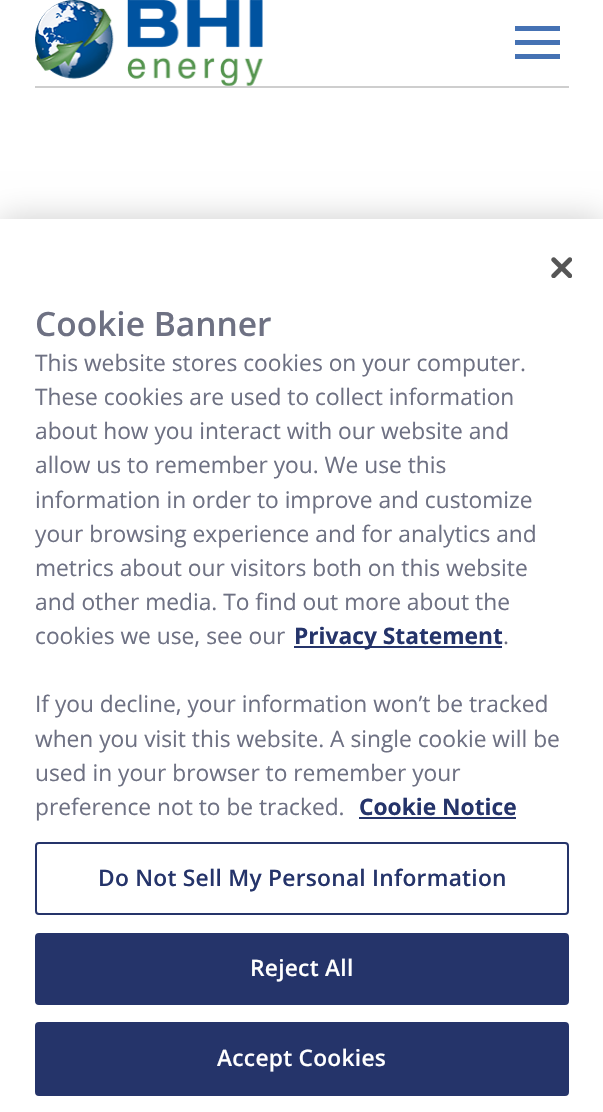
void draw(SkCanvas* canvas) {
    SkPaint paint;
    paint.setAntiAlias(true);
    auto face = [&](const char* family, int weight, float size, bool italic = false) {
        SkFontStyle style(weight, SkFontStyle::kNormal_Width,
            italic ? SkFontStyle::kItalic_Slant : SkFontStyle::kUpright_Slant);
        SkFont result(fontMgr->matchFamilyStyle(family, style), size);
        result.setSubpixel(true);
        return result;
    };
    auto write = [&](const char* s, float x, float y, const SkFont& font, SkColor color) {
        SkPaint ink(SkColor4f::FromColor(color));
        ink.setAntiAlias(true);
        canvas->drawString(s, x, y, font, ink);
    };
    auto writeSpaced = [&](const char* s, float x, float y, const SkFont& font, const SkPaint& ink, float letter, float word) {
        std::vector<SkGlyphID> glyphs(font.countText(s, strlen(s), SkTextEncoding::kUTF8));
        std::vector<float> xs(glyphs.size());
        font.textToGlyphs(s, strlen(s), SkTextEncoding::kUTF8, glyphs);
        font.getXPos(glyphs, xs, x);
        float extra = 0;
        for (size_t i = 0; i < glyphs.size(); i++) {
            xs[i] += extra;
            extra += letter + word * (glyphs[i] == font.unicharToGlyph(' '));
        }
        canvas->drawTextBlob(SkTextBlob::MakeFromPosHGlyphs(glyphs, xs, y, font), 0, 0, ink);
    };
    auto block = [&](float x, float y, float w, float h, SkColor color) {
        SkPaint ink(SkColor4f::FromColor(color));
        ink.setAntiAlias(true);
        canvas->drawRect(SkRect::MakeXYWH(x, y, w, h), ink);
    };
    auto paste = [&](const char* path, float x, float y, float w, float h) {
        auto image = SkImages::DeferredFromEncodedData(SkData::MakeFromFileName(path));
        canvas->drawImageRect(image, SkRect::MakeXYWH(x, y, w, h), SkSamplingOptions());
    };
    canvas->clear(SK_ColorWHITE);
    block(35, 86, 534, 2, SkColorSetRGB(206, 206, 206));
    paste("pic1.png", 35, 0, 228, 86);
    block(515, 26, 45, 5, SkColorSetRGB(69, 114, 180));
    block(515, 40, 45, 5, SkColorSetRGB(69, 114, 180));
    block(515, 54, 45, 5, SkColorSetRGB(69, 114, 180));
    paint.setColor(SkColorSetARGB(51, 0, 0, 0));
    paint.setMaskFilter(SkMaskFilter::MakeBlur(kNormal_SkBlurStyle, 16));
    canvas->drawRect(SkRect::MakeXYWH(0, 219, 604, 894), paint);
    paint.setMaskFilter(nullptr);
    block(0, 219, 603, 893, SK_ColorWHITE);
    paste("pic2.png", 551, 257, 21, 21);
    auto kFont1 = face("Open Sans", 600, 33.5f);
    write("Cookie Banner", 35, 336, kFont1, SkColorSetRGB(110, 113, 131));
    auto kFont2 = face("Open Sans", 400, 22.75f);
    write("This website stores cookies on your computer.", 35, 371, kFont2, SkColorSetRGB(110, 113, 131));
    write("These cookies are used to collect information", 35, 405, kFont2, SkColorSetRGB(110, 113, 131));
    write("about how you interact with our website and", 35, 439, kFont2, SkColorSetRGB(110, 113, 131));
    write("allow us to remember you. We use this", 35, 473, kFont2, SkColorSetRGB(110, 113, 131));
    write("information in order to improve and customize", 35, 508, kFont2, SkColorSetRGB(110, 113, 131));
    write("your browsing experience and for analytics and", 35, 542, kFont2, SkColorSetRGB(110, 113, 131));
    write("metrics about our visitors both on this website", 35, 576, kFont2, SkColorSetRGB(110, 113, 131));
    write("and other media. To find out more about the", 35, 610, kFont2, SkColorSetRGB(110, 113, 131));
    write("cookies we use, see our", 35, 644, kFont2, SkColorSetRGB(110, 113, 131));
    block(294, 646, 208, 2, SkColorSetRGB(37, 52, 106));
    auto kFont3 = face("Open Sans", 700, 22.75f);
    write("Privacy Statement", 294, 644, kFont3, SkColorSetRGB(37, 52, 106));
    write(".", 503, 644, kFont2, SkColorSetRGB(110, 113, 131));
    write("If you decline, your information won’t be tracked", 35, 712, kFont2, SkColorSetRGB(110, 113, 131));
    write("when you visit this website. A single cookie will be", 35, 747, kFont2, SkColorSetRGB(110, 113, 131));
    write("used in your browser to remember your", 35, 781, kFont2, SkColorSetRGB(110, 113, 131));
    write("preference not to be tracked.", 35, 815, kFont2, SkColorSetRGB(110, 113, 131));
    write("Cookie Notice", 359, 815, kFont3, SkColorSetRGB(37, 52, 106));
    block(359, 817, 157, 2, SkColorSetRGB(37, 52, 106));
    paint.setStyle(SkPaint::kStroke_Style);
    paint.setStrokeWidth(2);
    paint.setColor(SkColorSetRGB(37, 52, 106));
    canvas->drawRoundRect(SkRect::MakeXYWH(36, 843, 532, 71), 3, 3, paint);
    auto kFont4 = face("Open Sans", 600, 22.75f);
    paint.setStyle(SkPaint::kFill_Style);
    writeSpaced("Do Not Sell My Personal Information", 98, 886, kFont4, paint, 0.25f, 0);
    canvas->drawRoundRect(SkRect::MakeXYWH(36, 934, 532, 70), 3, 3, paint);
    paint.setStyle(SkPaint::kStroke_Style);
    canvas->drawRoundRect(SkRect::MakeXYWH(36, 934, 532, 70), 3, 3, paint);
    paint.setStyle(SkPaint::kFill_Style);
    paint.setColor(SK_ColorWHITE);
    writeSpaced("Reject All", 250, 976, kFont4, paint, 0.25f, 0);
    paint.setColor(SkColorSetRGB(37, 52, 106));
    canvas->drawRoundRect(SkRect::MakeXYWH(36, 1023, 532, 72), 3, 3, paint);
    paint.setStyle(SkPaint::kStroke_Style);
    canvas->drawRoundRect(SkRect::MakeXYWH(36, 1023, 532, 72), 3, 3, paint);
    paint.setStyle(SkPaint::kFill_Style);
    paint.setColor(SK_ColorWHITE);
    writeSpaced("Accept Cookies", 217, 1066, kFont4, paint, 0.25f, 0);
}
